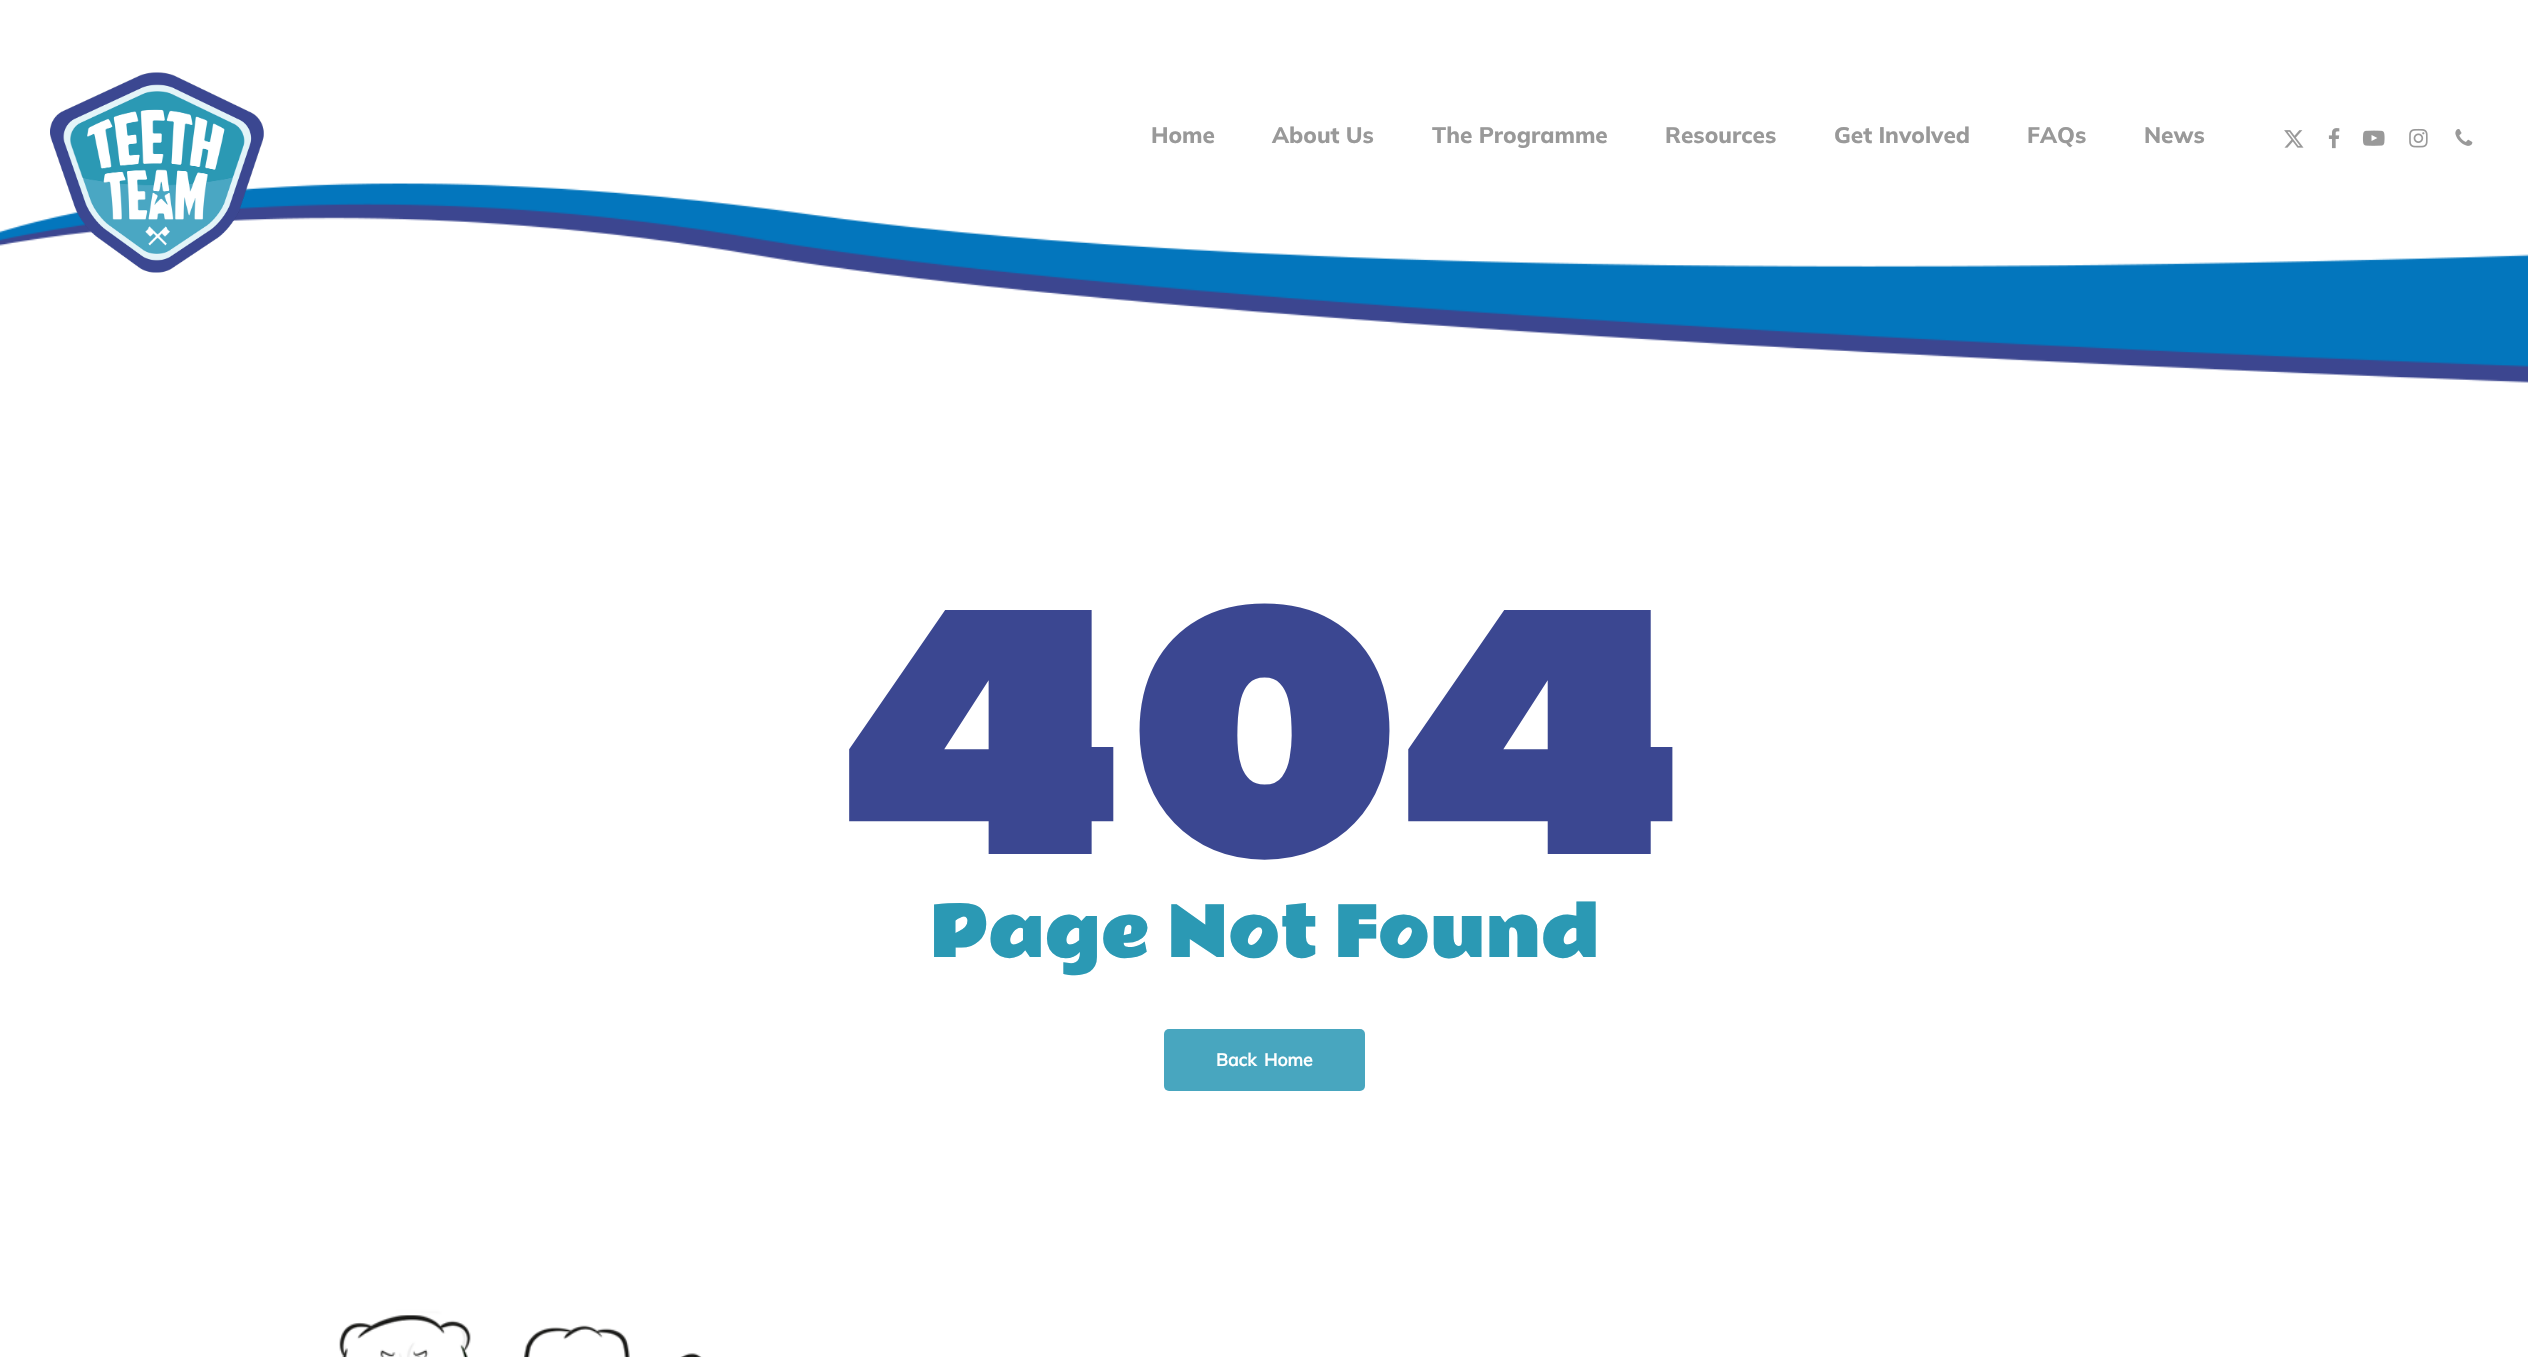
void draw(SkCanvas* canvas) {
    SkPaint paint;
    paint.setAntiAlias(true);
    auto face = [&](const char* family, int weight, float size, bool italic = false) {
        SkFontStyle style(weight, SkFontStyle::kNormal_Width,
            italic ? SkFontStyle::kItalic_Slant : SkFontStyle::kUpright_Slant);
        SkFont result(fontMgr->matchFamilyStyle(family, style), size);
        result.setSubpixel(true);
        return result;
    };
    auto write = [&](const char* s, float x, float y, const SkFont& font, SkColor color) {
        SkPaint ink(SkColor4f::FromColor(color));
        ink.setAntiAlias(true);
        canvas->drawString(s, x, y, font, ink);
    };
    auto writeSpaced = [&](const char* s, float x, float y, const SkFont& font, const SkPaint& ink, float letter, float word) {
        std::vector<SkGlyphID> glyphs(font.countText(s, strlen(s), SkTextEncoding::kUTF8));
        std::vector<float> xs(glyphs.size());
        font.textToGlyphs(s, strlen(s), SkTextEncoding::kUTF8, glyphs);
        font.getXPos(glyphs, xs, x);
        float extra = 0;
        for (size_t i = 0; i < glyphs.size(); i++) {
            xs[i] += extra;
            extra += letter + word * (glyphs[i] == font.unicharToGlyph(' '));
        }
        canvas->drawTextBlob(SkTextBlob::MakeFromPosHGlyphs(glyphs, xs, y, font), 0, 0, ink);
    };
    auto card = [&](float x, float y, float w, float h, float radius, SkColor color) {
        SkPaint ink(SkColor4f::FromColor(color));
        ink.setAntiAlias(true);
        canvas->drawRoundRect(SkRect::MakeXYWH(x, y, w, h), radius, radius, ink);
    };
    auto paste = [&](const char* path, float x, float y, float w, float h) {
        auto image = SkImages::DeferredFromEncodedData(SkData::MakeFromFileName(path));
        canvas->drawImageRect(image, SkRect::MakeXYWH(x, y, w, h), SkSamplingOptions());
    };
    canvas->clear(SK_ColorWHITE);
    paste("pic1.png", 0, 183, 2528, 200);
    paste("pic2.png", 50, 72, 214, 201);
    auto kFont1 = face("Mulish", 800, 22.5f);
    write("Home", 1151, 143, kFont1, SkColorSetRGB(153, 153, 153));
    write("About Us", 1272, 143, kFont1, SkColorSetRGB(153, 153, 153));
    write("The Programme", 1432, 143, kFont1, SkColorSetRGB(153, 153, 153));
    write("Resources", 1665, 143, kFont1, SkColorSetRGB(153, 153, 153));
    write("Get Involved", 1834, 143, kFont1, SkColorSetRGB(153, 153, 153));
    write("FAQs", 2027, 143, kFont1, SkColorSetRGB(153, 153, 153));
    write("News", 2144, 143, kFont1, SkColorSetRGB(153, 153, 153));
    paste("pic3.png", 2284, 130, 20, 18);
    paste("pic4.png", 2328, 128, 12, 21);
    paste("pic5.png", 2362, 130, 23, 16);
    paste("pic6.png", 2409, 128, 19, 20);
    paste("pic7.png", 2455, 129, 18, 17);
    auto kFont2 = face("Rammetto One", 400, 312.5f);
    write("404", 842, 854, kFont2, SkColorSetRGB(59, 71, 145));
    auto kFont3 = face("Rammetto One", 400, 67.5f);
    write("Page Not Found", 930, 957, kFont3, SkColorSetRGB(43, 153, 180));
    card(1164, 1029, 201, 62, 5, SkColorSetRGB(72, 166, 191));
    auto kFont4 = face("Mulish", 700, 17.5f);
    paint.setColor(SK_ColorWHITE);
    writeSpaced("Back Home", 1216, 1066, kFont4, paint, 0, 3);
    paste("pic8.png", 0, 1309, 2528, 48);
}
